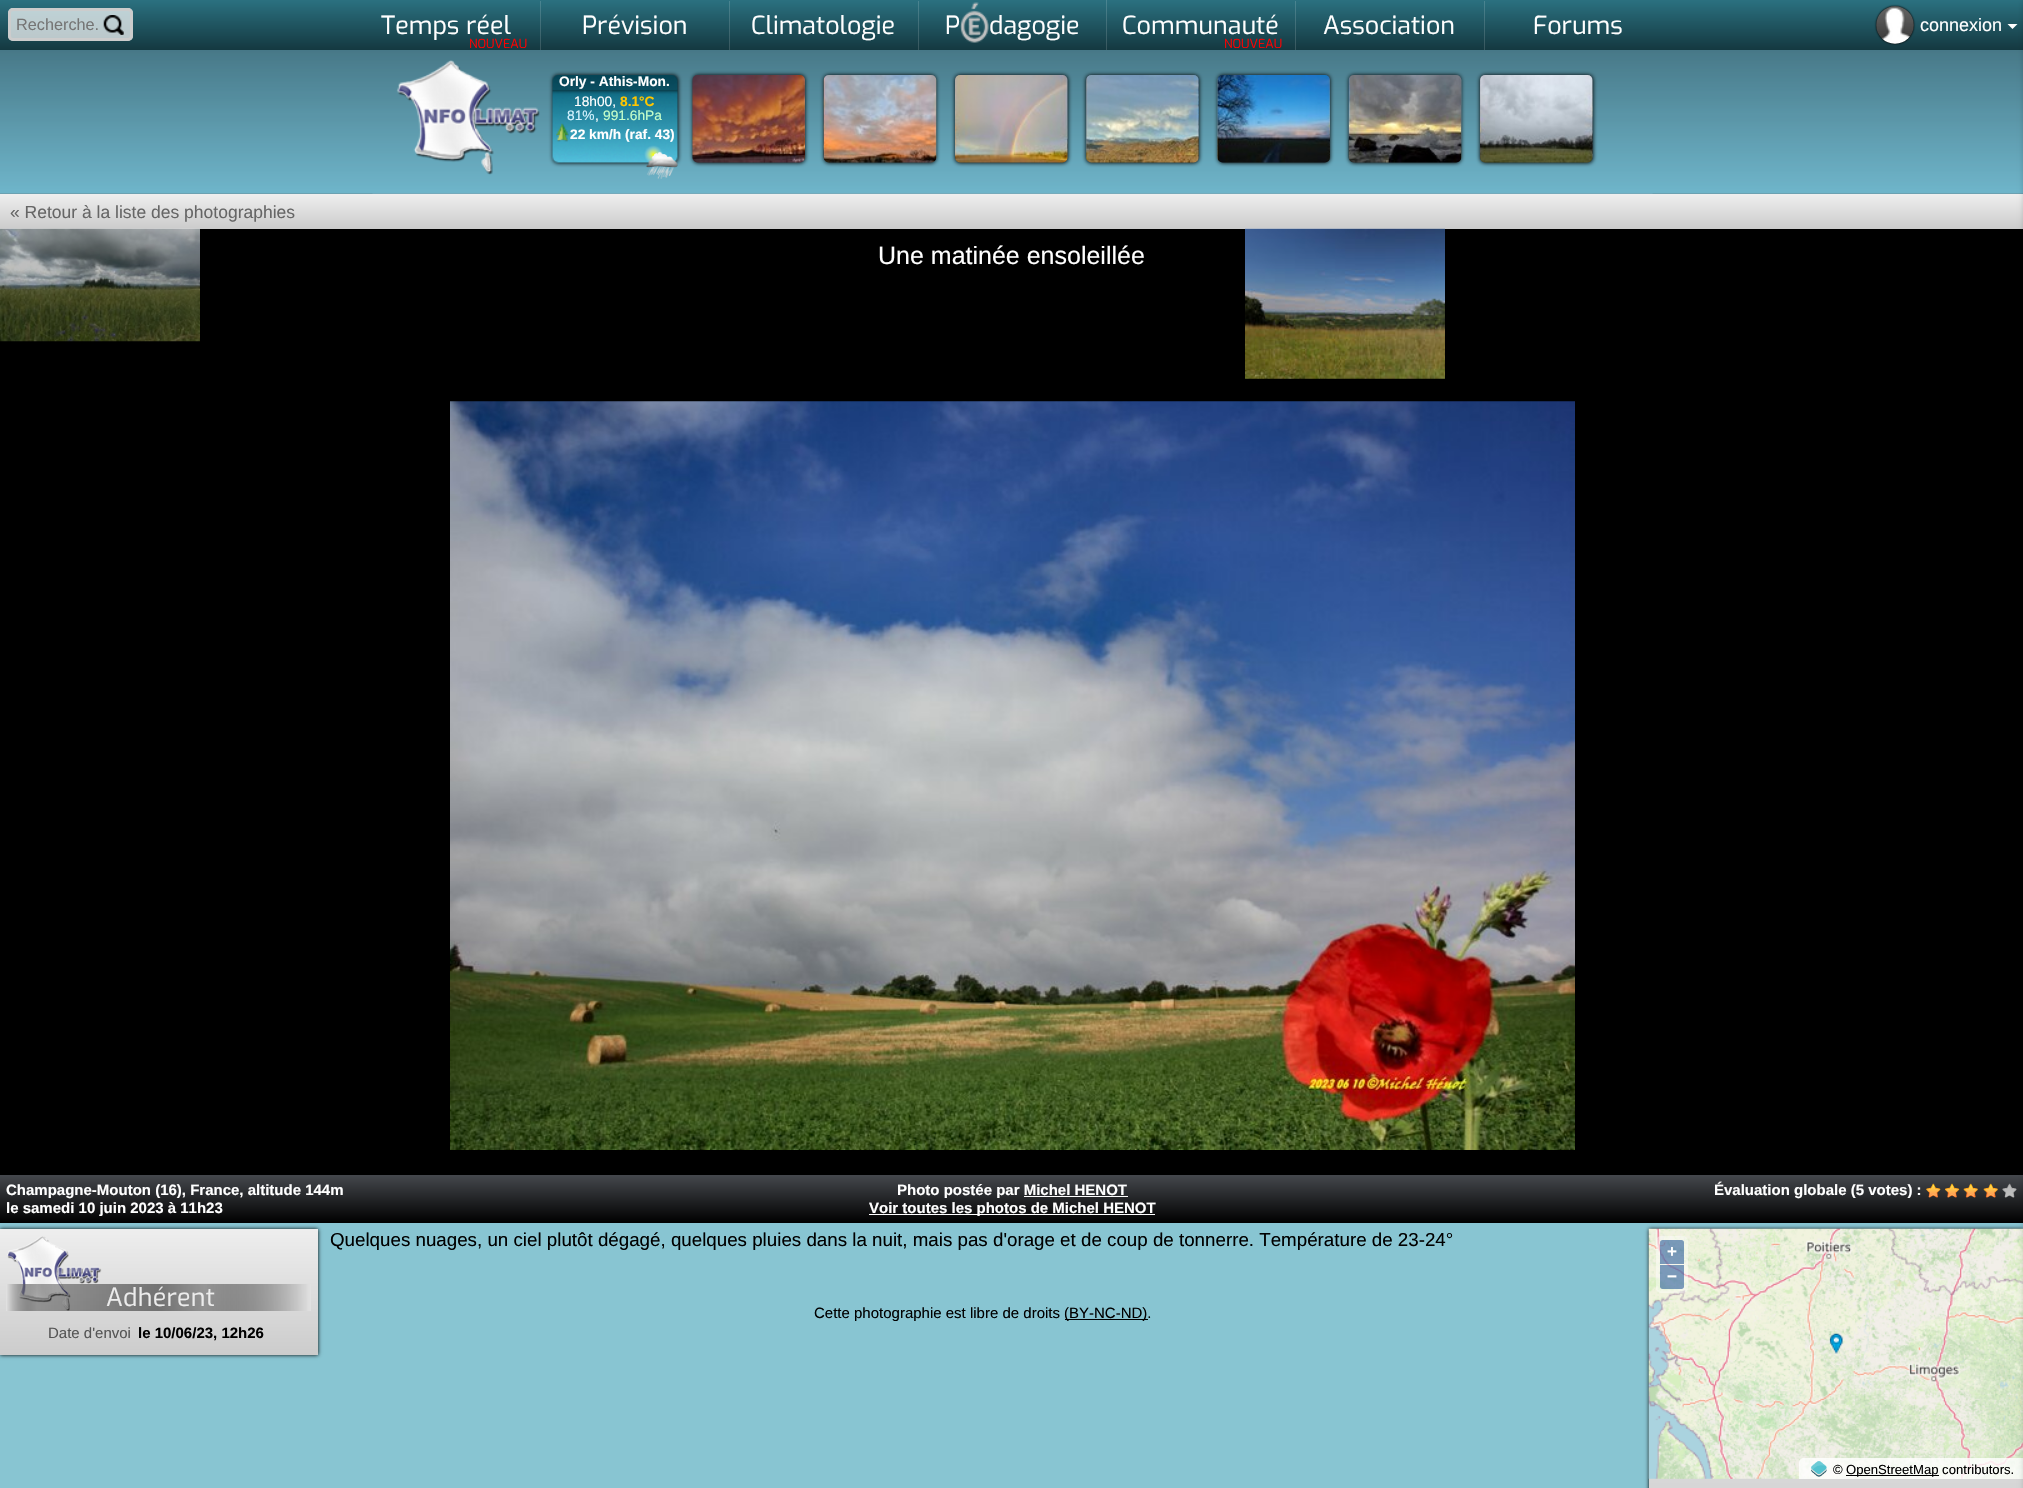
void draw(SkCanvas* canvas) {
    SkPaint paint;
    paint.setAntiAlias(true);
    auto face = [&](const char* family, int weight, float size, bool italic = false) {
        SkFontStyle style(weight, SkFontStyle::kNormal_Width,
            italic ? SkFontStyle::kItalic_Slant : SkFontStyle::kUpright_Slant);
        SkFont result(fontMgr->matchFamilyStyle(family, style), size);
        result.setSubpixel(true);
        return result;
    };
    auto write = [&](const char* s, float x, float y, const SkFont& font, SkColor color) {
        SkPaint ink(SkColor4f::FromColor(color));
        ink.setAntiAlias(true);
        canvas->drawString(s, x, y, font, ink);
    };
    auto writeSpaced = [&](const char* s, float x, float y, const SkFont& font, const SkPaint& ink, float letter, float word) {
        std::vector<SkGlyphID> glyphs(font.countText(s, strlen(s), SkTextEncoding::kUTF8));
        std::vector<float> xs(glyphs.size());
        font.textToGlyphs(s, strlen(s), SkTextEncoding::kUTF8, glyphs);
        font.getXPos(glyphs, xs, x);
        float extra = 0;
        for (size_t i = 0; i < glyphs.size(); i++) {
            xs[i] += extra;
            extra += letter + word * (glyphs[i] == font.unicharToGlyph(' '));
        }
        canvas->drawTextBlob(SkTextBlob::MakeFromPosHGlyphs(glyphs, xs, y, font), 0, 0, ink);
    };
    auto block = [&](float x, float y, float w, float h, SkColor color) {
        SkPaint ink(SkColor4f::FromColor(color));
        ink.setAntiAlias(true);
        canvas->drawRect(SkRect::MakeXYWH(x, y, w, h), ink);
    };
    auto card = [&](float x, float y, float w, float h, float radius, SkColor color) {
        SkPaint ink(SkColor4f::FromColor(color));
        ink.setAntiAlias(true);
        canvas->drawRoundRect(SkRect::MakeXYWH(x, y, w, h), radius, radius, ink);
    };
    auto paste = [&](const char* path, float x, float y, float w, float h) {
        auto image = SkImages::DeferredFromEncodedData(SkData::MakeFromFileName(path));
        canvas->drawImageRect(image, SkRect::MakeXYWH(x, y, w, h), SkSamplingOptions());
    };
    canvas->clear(SK_ColorWHITE);
    paste("pic1.png", 0, 193, 2023, 1);
    {
        const SkColor colors[] = {SkColorSetRGB(43, 113, 128), SkColorSetRGB(20, 56, 64)};
        const float stops[] = {0, 1};
        const SkPoint ends[] = {{1012, 0}, {1012, 50}};
        paint.setShader(SkGradientShader::MakeLinear(ends, colors, stops, 2, SkTileMode::kClamp));
        paint.setAlpha(255);
    }
    canvas->drawRect(SkRect::MakeXYWH(0, 0, 2023, 50), paint);
    card(8, 8, 125, 33, 5, SkColorSetARGB(179, 255, 255, 255));
    paste("pic2.png", 103, 15, 21, 20);
    paint.setStyle(SkPaint::kStroke_Style);
    paint.setStrokeWidth(3);
    paint.setShader(nullptr);
    paint.setColor(SkColorSetRGB(204, 204, 204));
    canvas->drawRoundRect(SkRect::MakeXYWH(9.5f, 9.5f, 122, 30), 3.5f, 3.5f, paint);
    auto kFont1 = face("Liberation Sans", 400, 16.25f);
    write("Recherche.", 16, 30, kFont1, SkColorSetRGB(117, 117, 117));
    block(540, 1, 1, 50, SkColorSetARGB(38, 255, 255, 255));
    auto kFont2 = face("Exo", 400, 25);
    write("Temps réel", 381, 34, kFont2, SK_ColorWHITE);
    auto kFont3 = face("Exo", 400, 12.5f);
    write("NOUVEAU", 469, 48, kFont3, SkColorSetRGB(255, 0, 0));
    block(729, 1, 1, 50, SkColorSetARGB(38, 255, 255, 255));
    write("Prévision", 582, 34, kFont2, SK_ColorWHITE);
    block(918, 1, 1, 50, SkColorSetARGB(38, 255, 255, 255));
    write("Climatologie", 751, 34, kFont2, SK_ColorWHITE);
    block(1106, 0, 1, 50, SkColorSetARGB(38, 255, 255, 255));
    write("P", 945, 34, kFont2, SK_ColorWHITE);
    paste("pic3.png", 960, 2, 29, 41);
    write("dagogie", 989, 34, kFont2, SK_ColorWHITE);
    block(1295, 1, 1, 50, SkColorSetARGB(38, 255, 255, 255));
    write("Communauté", 1122, 34, kFont2, SK_ColorWHITE);
    write("NOUVEAU", 1224, 48, kFont3, SkColorSetRGB(255, 0, 0));
    block(1484, 1, 1, 50, SkColorSetARGB(38, 255, 255, 255));
    write("Association", 1323, 34, kFont2, SK_ColorWHITE);
    write("Forums", 1533, 34, kFont2, SK_ColorWHITE);
    paste("pic17.png", 372, 193, 1281, 1);
    paste("pic4.png", 0, 50, 2023, 144);
    paste("pic5.png", 396, 60, 144, 115);
    paint.setStyle(SkPaint::kFill_Style);
    paint.setColor(SK_ColorBLACK);
    paint.setMaskFilter(SkMaskFilter::MakeBlur(kNormal_SkBlurStyle, 2));
    canvas->drawRoundRect(SkRect::MakeXYWH(553, 75, 125, 88), 5, 5, paint);
    paint.setMaskFilter(nullptr);
    paste("pic6.png", 552, 75, 126, 88);
    auto kFont4 = face("Liberation Sans", 700, 13.75f);
    write("Orly - Athis-Mon.", 559, 86, kFont4, SK_ColorWHITE);
    auto kFont5 = face("Liberation Sans", 400, 13.75f);
    write("18h00,", 574, 106, kFont5, SK_ColorWHITE);
    write("8.1°C", 620, 106, kFont4, SkColorSetRGB(255, 198, 0));
    write("81%", 567, 120, kFont5, SkColorSetRGB(212, 243, 255));
    write(",", 595, 120, kFont5, SK_ColorWHITE);
    write("991.6hPa", 603, 120, kFont5, SkColorSetRGB(197, 255, 202));
    paste("pic7.png", 556, 123, 13, 19);
    write("22 km/h (raf. 43)", 570, 139, kFont4, SK_ColorWHITE);
    paste("pic8.png", 644, 145, 34, 34);
    paint.setMaskFilter(SkMaskFilter::MakeBlur(kNormal_SkBlurStyle, 2));
    canvas->drawRoundRect(SkRect::MakeXYWH(693, 75, 112, 88), 5, 5, paint);
    paint.setMaskFilter(nullptr);
    paste("pic9.png", 692, 75, 113, 88);
    paint.setMaskFilter(SkMaskFilter::MakeBlur(kNormal_SkBlurStyle, 2));
    canvas->drawRoundRect(SkRect::MakeXYWH(824, 75, 112, 88), 5, 5, paint);
    paint.setMaskFilter(nullptr);
    paste("pic10.png", 823, 75, 114, 88);
    paint.setMaskFilter(SkMaskFilter::MakeBlur(kNormal_SkBlurStyle, 2));
    canvas->drawRoundRect(SkRect::MakeXYWH(955, 75, 113, 88), 5, 5, paint);
    paint.setMaskFilter(nullptr);
    paste("pic11.png", 955, 75, 113, 88);
    paint.setMaskFilter(SkMaskFilter::MakeBlur(kNormal_SkBlurStyle, 2));
    canvas->drawRoundRect(SkRect::MakeXYWH(1086, 75, 113, 88), 5, 5, paint);
    paint.setMaskFilter(nullptr);
    paste("pic12.png", 1086, 75, 113, 88);
    paint.setMaskFilter(SkMaskFilter::MakeBlur(kNormal_SkBlurStyle, 2));
    canvas->drawRoundRect(SkRect::MakeXYWH(1218, 75, 112, 88), 5, 5, paint);
    paint.setMaskFilter(nullptr);
    paste("pic13.png", 1217, 75, 113, 88);
    paint.setMaskFilter(SkMaskFilter::MakeBlur(kNormal_SkBlurStyle, 2));
    canvas->drawRoundRect(SkRect::MakeXYWH(1349, 75, 112, 88), 5, 5, paint);
    paint.setMaskFilter(nullptr);
    paste("pic14.png", 1348, 75, 114, 88);
    paint.setMaskFilter(SkMaskFilter::MakeBlur(kNormal_SkBlurStyle, 2));
    canvas->drawRoundRect(SkRect::MakeXYWH(1480, 75, 113, 88), 5, 5, paint);
    paint.setMaskFilter(nullptr);
    paste("pic15.png", 1480, 75, 113, 88);
    paint.setMaskFilter(SkMaskFilter::MakeBlur(kNormal_SkBlurStyle, 1));
    canvas->drawRoundRect(SkRect::MakeXYWH(1876, 6, 38, 38), 19, 19, paint);
    paint.setMaskFilter(nullptr);
    paste("pic16.png", 1876, 6, 38, 38);
    auto kFont6 = face("Liberation Sans", 400, 18);
    write("connexion", 1920, 31, kFont6, SK_ColorWHITE);
    paint.setColor(SK_ColorWHITE);
    canvas->drawPath(SkPathBuilder().moveTo(2007.5f, 24).lineTo(2017.5f, 24).lineTo(2012.5f, 29).close().detach(), paint);
    {
        const SkColor colors[] = {SkColorSetRGB(238, 238, 238), SkColorSetRGB(204, 204, 204)};
        const float stops[] = {0, 1};
        const SkPoint ends[] = {{1012, 194}, {1012, 229}};
        paint.setShader(SkGradientShader::MakeLinear(ends, colors, stops, 2, SkTileMode::kClamp));
        paint.setAlpha(255);
    }
    canvas->drawRect(SkRect::MakeXYWH(0, 194, 2023, 35), paint);
    auto kFont7 = face("Liberation Sans", 400, 17.5f);
    write("« Retour à la liste des photographies", 10, 218, kFont7, SkColorSetRGB(102, 102, 102));
    block(0, 229, 2023, 946, SK_ColorBLACK);
    paste("pic18.png", 0, 228, 200, 114);
    auto kFont8 = face("Liberation Sans", 400, 25);
    write("Une matinée ensoleillée", 878, 264, kFont8, SK_ColorWHITE);
    paste("pic19.png", 450, 401, 1125, 749);
    paste("pic20.png", 1245, 228, 200, 151);
    block(0, 1223, 2023, 265, SkColorSetRGB(136, 197, 210));
    {
        const SkColor colors[] = {SkColorSetRGB(69, 72, 77), SK_ColorBLACK};
        const float stops[] = {0, 1};
        const SkPoint ends[] = {{1012, 1175}, {1012, 1223}};
        paint.setShader(SkGradientShader::MakeLinear(ends, colors, stops, 2, SkTileMode::kClamp));
        paint.setAlpha(255);
    }
    canvas->drawRect(SkRect::MakeXYWH(0, 1175, 2023, 48), paint);
    auto kFont9 = face("Liberation Sans", 700, 15);
    write("Champagne-Mouton (16), France, altitude 144m", 6, 1195, kFont9, SK_ColorWHITE);
    write("le samedi 10 juin 2023 à 11h23", 6, 1213, kFont9, SK_ColorWHITE);
    write("Photo postée par Michel HENOT", 897, 1195, kFont9, SK_ColorWHITE);
    block(1024, 1196, 104, 1, SK_ColorWHITE);
    block(869, 1214, 286, 1, SK_ColorWHITE);
    write("Voir toutes les photos de Michel HENOT", 869, 1213, kFont9, SK_ColorWHITE);
    write("Évaluation globale (5 votes) :", 1714, 1195, kFont9, SK_ColorWHITE);
    paste("pic21.png", 1926, 1183, 15, 15);
    paste("pic22.png", 1945, 1183, 15, 15);
    paste("pic23.png", 1963, 1183, 15, 15);
    paste("pic23.png", 1983, 1183, 15, 15);
    paste("pic24.png", 2002, 1183, 15, 15);
    auto kFont10 = face("Liberation Sans", 400, 18.75f);
    write("Quelques nuages, un ciel plutôt dégagé, quelques pluies dans la nuit, mais pas d'orage et de coup de tonnerre. Température de 23-24°", 330, 1246, kFont10, SK_ColorBLACK);
    paint.setShader(nullptr);
    paint.setColor(SK_ColorBLACK);
    paint.setMaskFilter(SkMaskFilter::MakeBlur(kNormal_SkBlurStyle, 2));
    canvas->drawRect(SkRect::MakeXYWH(0, 1229, 318, 126), paint);
    paint.setMaskFilter(nullptr);
    {
        const SkColor colors[] = {SkColorSetRGB(238, 238, 238), SkColorSetRGB(204, 204, 204)};
        const float stops[] = {0, 1};
        const SkPoint ends[] = {{159, 1229}, {159, 1355}};
        paint.setShader(SkGradientShader::MakeLinear(ends, colors, stops, 2, SkTileMode::kClamp));
        paint.setAlpha(255);
    }
    canvas->drawRect(SkRect::MakeXYWH(0, 1229, 318, 126), paint);
    paste("pic25.png", 7, 1236, 95, 75);
    {
        const SkColor colors[] = {SkColorSetRGB(226, 226, 226), SkColorSetARGB(84, 0, 0, 0), SkColorSetARGB(122, 0, 0, 0), SkColorSetARGB(84, 0, 0, 0), SkColorSetRGB(226, 226, 226)};
        const float stops[] = {0, 0.1f, 0.5f, 0.65f, 1};
        const SkPoint ends[] = {{6.2f, 1298}, {311, 1298}};
        paint.setShader(SkGradientShader::MakeLinear(ends, colors, stops, 5, SkTileMode::kClamp));
        paint.setAlpha(255);
    }
    canvas->drawRect(SkRect::MakeXYWH(6, 1284, 305, 27), paint);
    paint.setShader(nullptr);
    paint.setColor(SkColorSetRGB(236, 236, 236));
    writeSpaced("Adhérent", 106, 1306, kFont2, paint, 0.25f, 0);
    auto kFont11 = face("Liberation Sans", 400, 15);
    write("Date d'envoi", 48, 1338, kFont11, SkColorSetRGB(85, 85, 85));
    write("le 10/06/23, 12h26", 138, 1338, kFont9, SK_ColorBLACK);
    write("Cette photographie est libre de droits", 814, 1318, kFont11, SK_ColorBLACK);
    block(1065, 1319, 83, 1, SK_ColorBLACK);
    write("(BY-NC-ND).", 1064, 1318, kFont11, SK_ColorBLACK);
    paint.setColor(SK_ColorBLACK);
    paint.setMaskFilter(SkMaskFilter::MakeBlur(kNormal_SkBlurStyle, 2));
    canvas->drawRect(SkRect::MakeXYWH(1649, 1229, 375, 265), paint);
    paint.setMaskFilter(nullptr);
    {
        const SkColor colors[] = {SkColorSetRGB(238, 238, 238), SkColorSetRGB(204, 204, 204)};
        const float stops[] = {0, 1};
        const SkPoint ends[] = {{1836, 1229}, {1836, 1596}};
        paint.setShader(SkGradientShader::MakeLinear(ends, colors, stops, 2, SkTileMode::kClamp));
        paint.setAlpha(255);
    }
    canvas->drawRect(SkRect::MakeXYWH(1649, 1478, 374, 10), paint);
    paste("pic26.png", 1648, 1228, 375, 251);
    card(1656, 1236, 32, 57, 5, SkColorSetARGB(102, 255, 255, 255));
    paint.setShader(nullptr);
    paint.setColor(SkColorSetARGB(128, 0, 60, 136));
    canvas->drawPath(SkPathBuilder().moveTo(1662.5f, 1240).lineTo(1681.5f, 1240).cubicTo(1683, 1240, 1684, 1241, 1684, 1242.5f).lineTo(1684, 1264).lineTo(1660, 1264).lineTo(1660, 1242.5f).cubicTo(1660, 1241, 1661, 1240, 1662.5f, 1240).close().detach(), paint);
    auto kFont12 = face("Liberation Sans", 700, 17);
    write("+", 1667, 1257, kFont12, SK_ColorWHITE);
    canvas->drawPath(SkPathBuilder().moveTo(1660, 1265).lineTo(1684, 1265).lineTo(1684, 1286.5f).cubicTo(1684, 1288, 1683, 1289, 1681.5f, 1289).lineTo(1662.5f, 1289).cubicTo(1661, 1289, 1660, 1288, 1660, 1286.5f).close().detach(), paint);
    write("−", 1667, 1282, kFont12, SK_ColorWHITE);
    paint.setColor(SkColorSetARGB(204, 255, 255, 255));
    canvas->drawPath(SkPathBuilder().moveTo(1804, 1458).lineTo(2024, 1458).lineTo(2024, 1479).lineTo(1799, 1479).lineTo(1799, 1463).cubicTo(1799, 1460, 1801, 1458, 1804, 1458).close().detach(), paint);
    paste("pic27.png", 1811, 1461, 16, 16);
    auto kFont13 = face("Liberation Sans", 400, 13.1f);
    write("©", 1833, 1474, kFont13, SK_ColorBLACK);
    block(1846, 1475, 93, 1, SK_ColorBLACK);
    write("OpenStreetMap contributors.", 1846, 1474, kFont13, SK_ColorBLACK);
    paint.setColor(SkColorSetARGB(51, 0, 0, 0));
    paint.setMaskFilter(SkMaskFilter::MakeBlur(kNormal_SkBlurStyle, 3));
    canvas->drawRect(SkRect::MakeXYWH(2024, 1, 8, 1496), paint);
    paint.setMaskFilter(nullptr);
}
